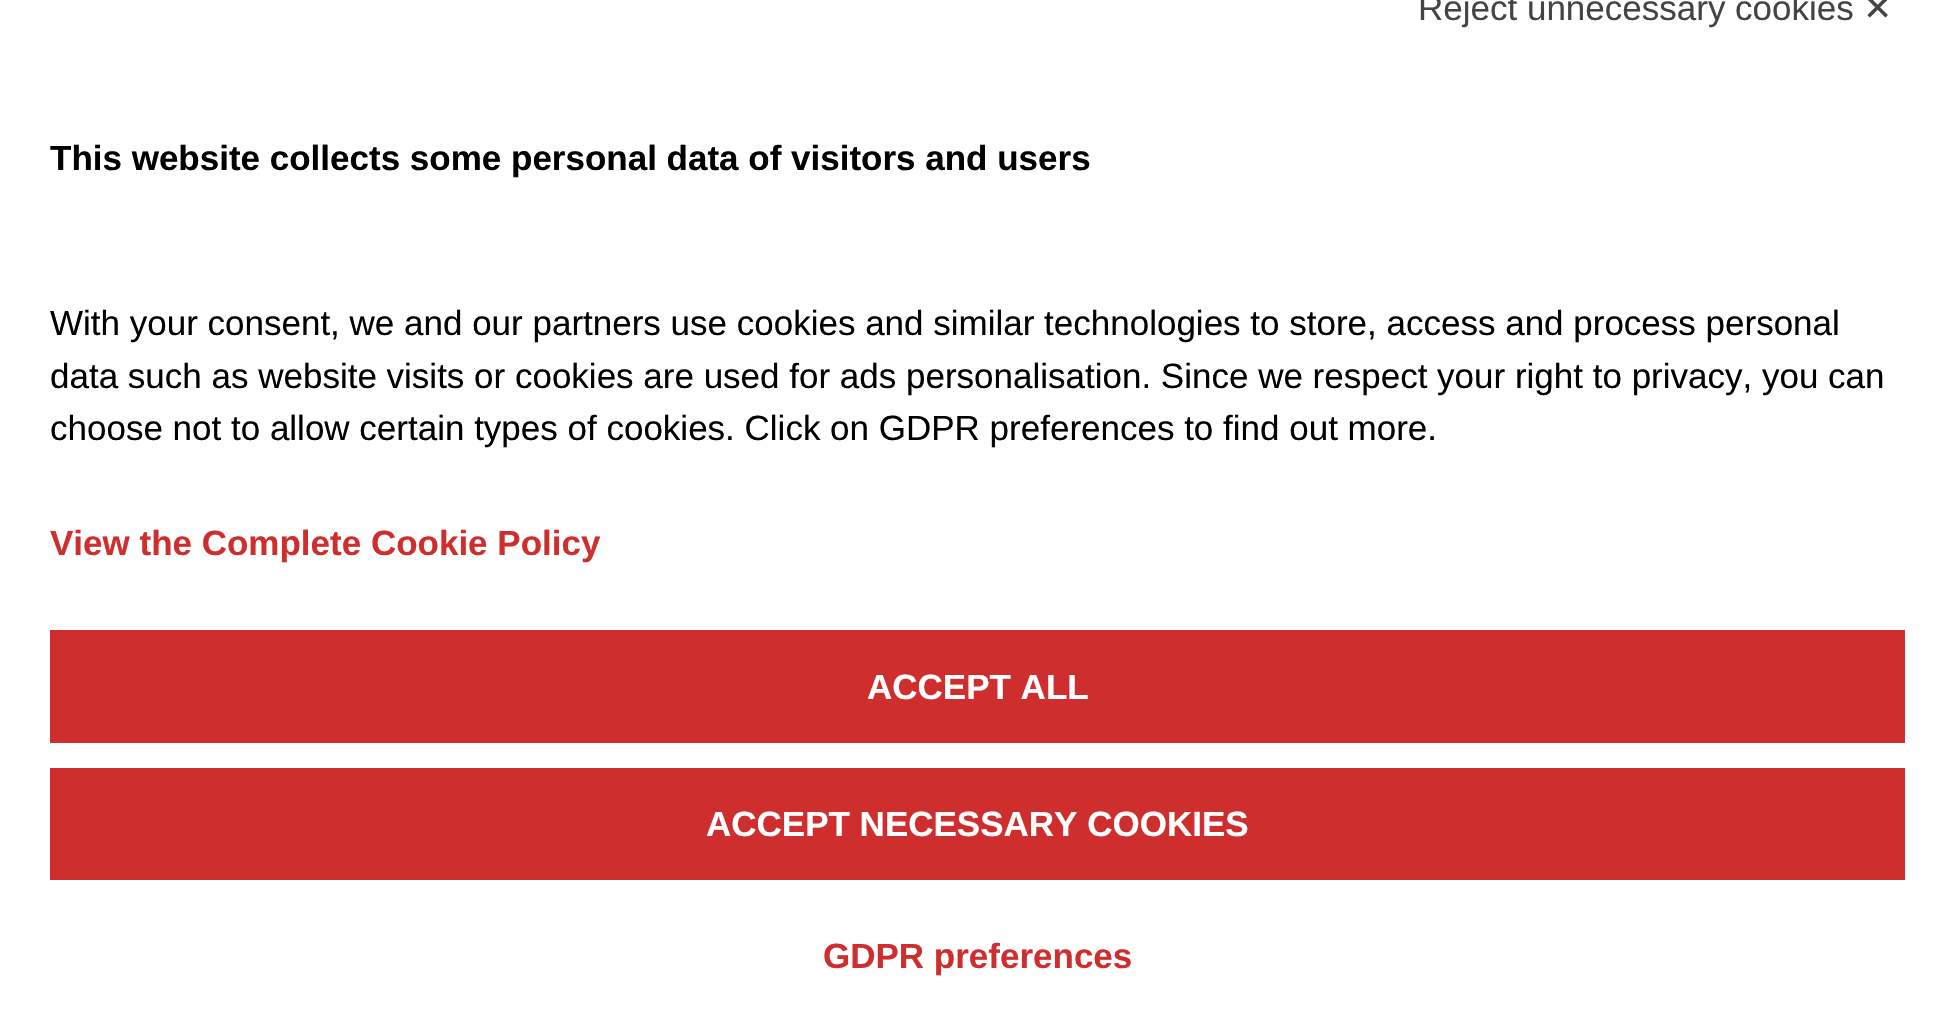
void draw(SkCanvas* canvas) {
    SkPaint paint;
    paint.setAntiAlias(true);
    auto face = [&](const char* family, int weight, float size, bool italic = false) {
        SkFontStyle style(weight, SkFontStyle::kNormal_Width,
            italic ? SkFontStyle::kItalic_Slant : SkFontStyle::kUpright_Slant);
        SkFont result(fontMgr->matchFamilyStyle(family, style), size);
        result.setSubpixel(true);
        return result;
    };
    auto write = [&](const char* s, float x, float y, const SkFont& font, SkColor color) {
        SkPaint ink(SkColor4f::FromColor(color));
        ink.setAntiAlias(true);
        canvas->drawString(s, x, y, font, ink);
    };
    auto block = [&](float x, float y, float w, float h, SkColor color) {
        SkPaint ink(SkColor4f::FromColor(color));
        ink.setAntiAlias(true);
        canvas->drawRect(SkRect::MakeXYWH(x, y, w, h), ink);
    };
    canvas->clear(SK_ColorWHITE);
    auto kFont1 = face("Liberation Sans", 400, 35);
    write("Reject unnecessary cookies", 1418, 20, kFont1, SkColorSetRGB(68, 68, 68));
    auto kFont2 = face("DejaVu Sans", 400, 35);
    write("✕", 1863, 20, kFont2, SkColorSetRGB(68, 68, 68));
    auto kFont3 = face("Liberation Sans", 700, 35);
    write("This website collects some personal data of visitors and users", 50, 170, kFont3, SK_ColorBLACK);
    write("With your consent, we and our partners use cookies and similar technologies to store, access and process personal", 50, 335, kFont1, SK_ColorBLACK);
    write("data such as website visits or cookies are used for ads personalisation. Since we respect your right to privacy, you can", 50, 388, kFont1, SK_ColorBLACK);
    write("choose not to allow certain types of cookies. Click on GDPR preferences to find out more.", 50, 440, kFont1, SK_ColorBLACK);
    write("View the Complete Cookie Policy", 50, 555, kFont3, SkColorSetRGB(207, 46, 46));
    block(50, 630, 1855, 113, SkColorSetRGB(207, 46, 46));
    write("ACCEPT ALL", 867, 699, kFont3, SK_ColorWHITE);
    block(50, 768, 1855, 112, SkColorSetRGB(207, 46, 46));
    write("ACCEPT NECESSARY COOKIES", 706, 836, kFont3, SK_ColorWHITE);
    write("GDPR preferences", 823, 968, kFont3, SkColorSetRGB(207, 46, 46));
}
